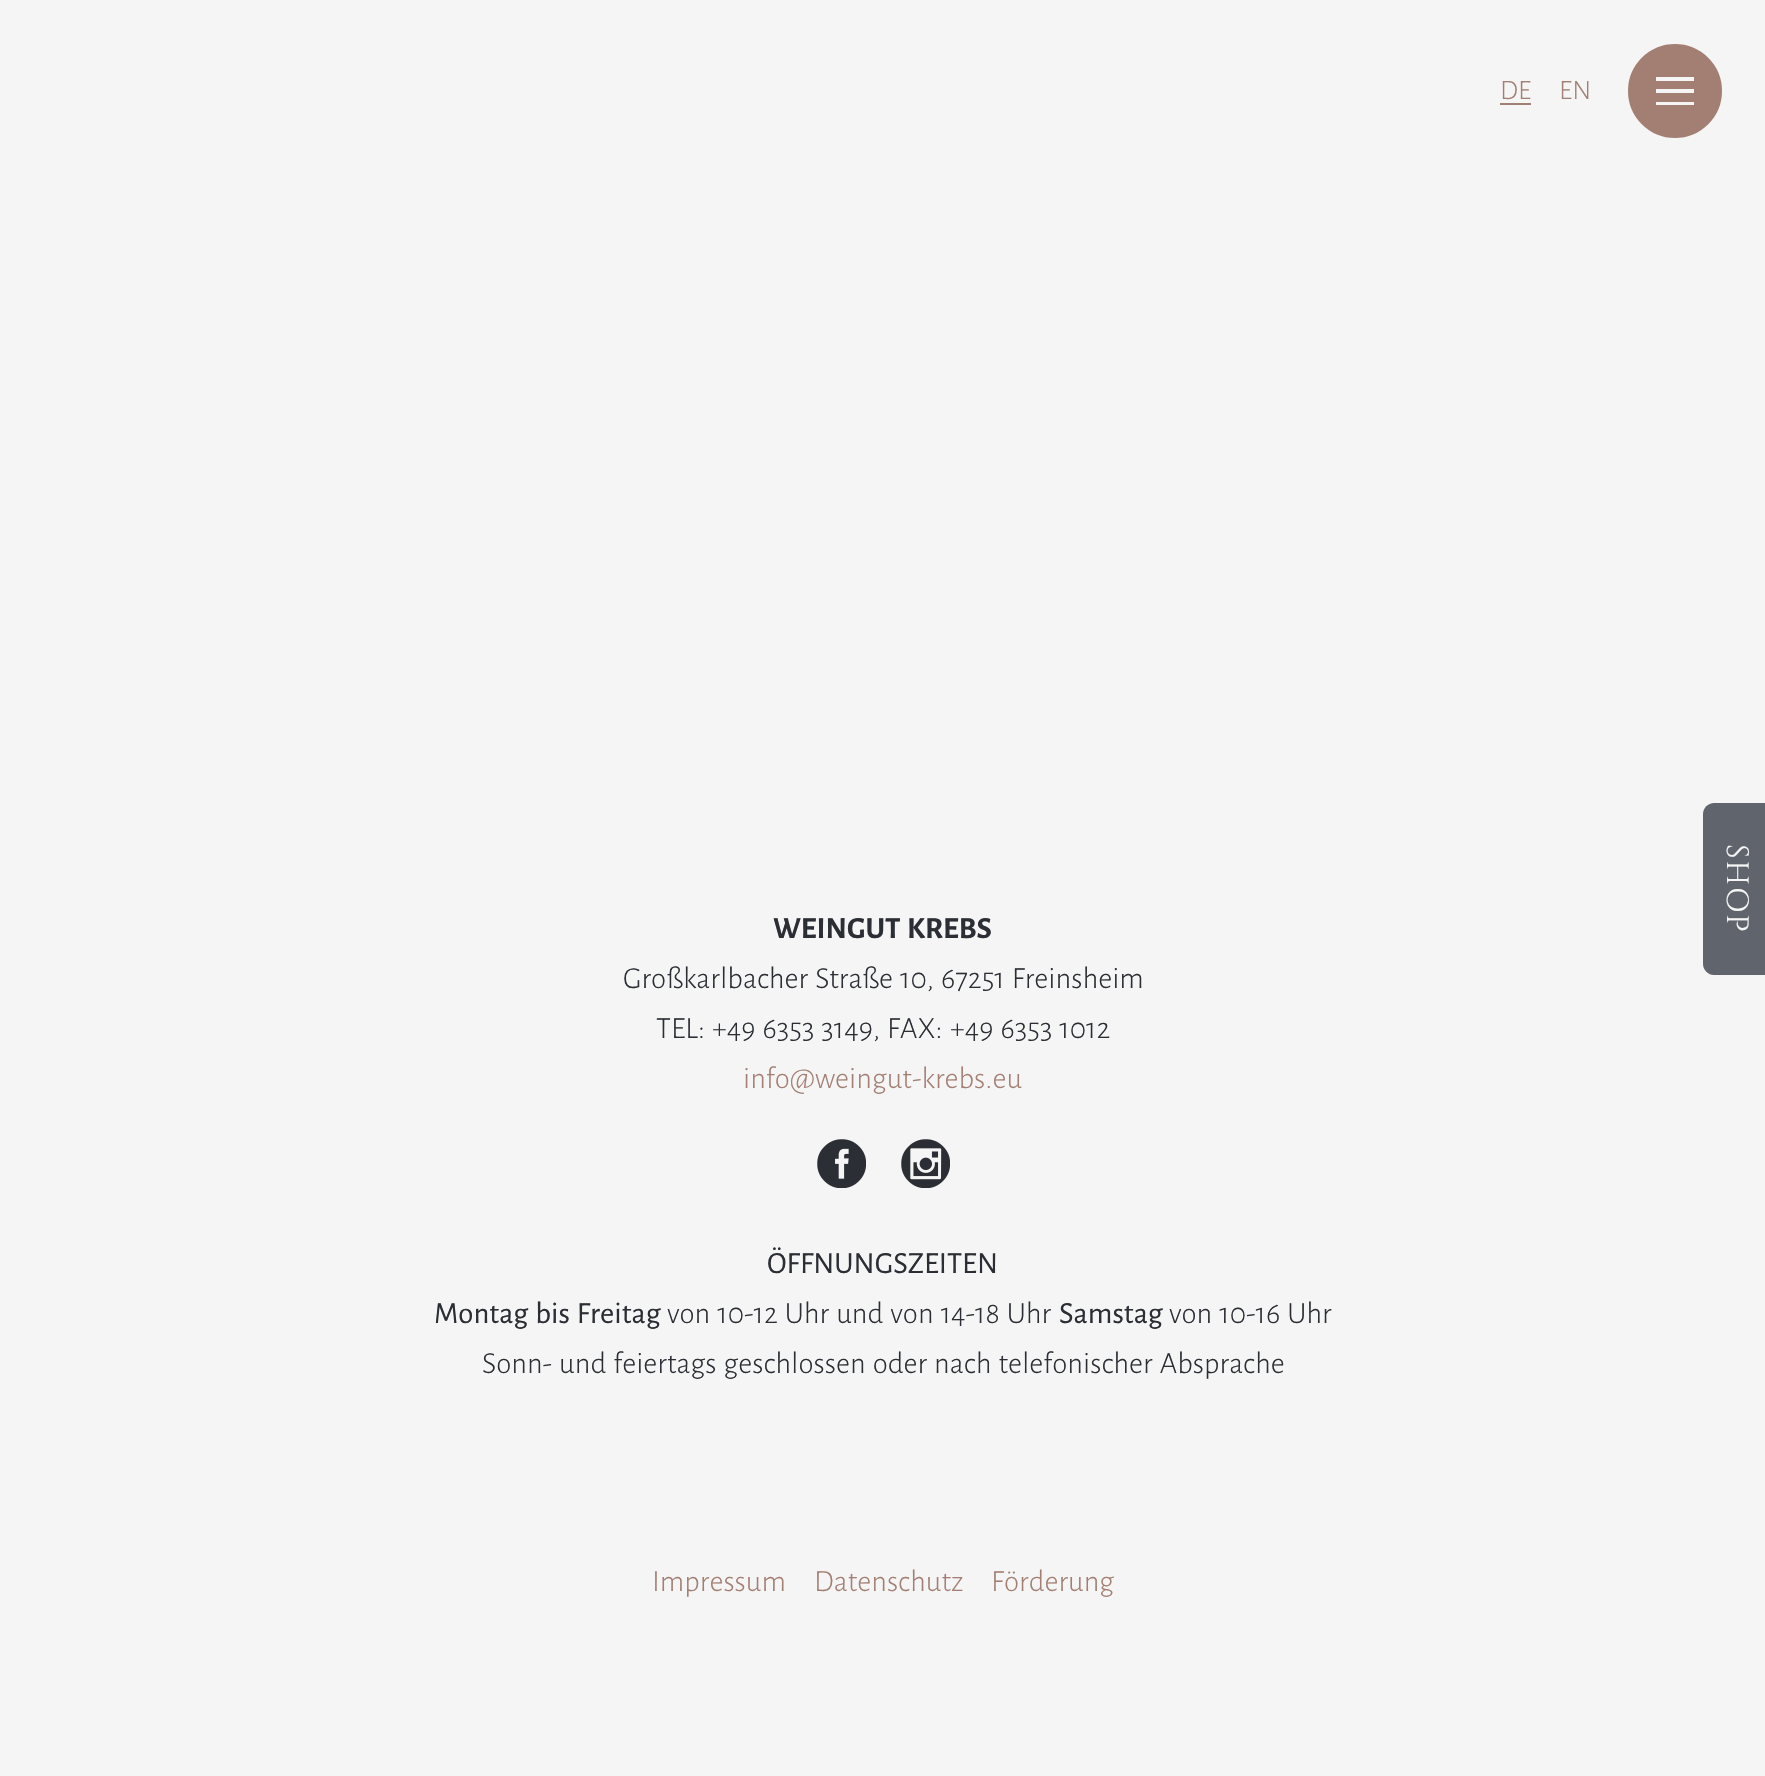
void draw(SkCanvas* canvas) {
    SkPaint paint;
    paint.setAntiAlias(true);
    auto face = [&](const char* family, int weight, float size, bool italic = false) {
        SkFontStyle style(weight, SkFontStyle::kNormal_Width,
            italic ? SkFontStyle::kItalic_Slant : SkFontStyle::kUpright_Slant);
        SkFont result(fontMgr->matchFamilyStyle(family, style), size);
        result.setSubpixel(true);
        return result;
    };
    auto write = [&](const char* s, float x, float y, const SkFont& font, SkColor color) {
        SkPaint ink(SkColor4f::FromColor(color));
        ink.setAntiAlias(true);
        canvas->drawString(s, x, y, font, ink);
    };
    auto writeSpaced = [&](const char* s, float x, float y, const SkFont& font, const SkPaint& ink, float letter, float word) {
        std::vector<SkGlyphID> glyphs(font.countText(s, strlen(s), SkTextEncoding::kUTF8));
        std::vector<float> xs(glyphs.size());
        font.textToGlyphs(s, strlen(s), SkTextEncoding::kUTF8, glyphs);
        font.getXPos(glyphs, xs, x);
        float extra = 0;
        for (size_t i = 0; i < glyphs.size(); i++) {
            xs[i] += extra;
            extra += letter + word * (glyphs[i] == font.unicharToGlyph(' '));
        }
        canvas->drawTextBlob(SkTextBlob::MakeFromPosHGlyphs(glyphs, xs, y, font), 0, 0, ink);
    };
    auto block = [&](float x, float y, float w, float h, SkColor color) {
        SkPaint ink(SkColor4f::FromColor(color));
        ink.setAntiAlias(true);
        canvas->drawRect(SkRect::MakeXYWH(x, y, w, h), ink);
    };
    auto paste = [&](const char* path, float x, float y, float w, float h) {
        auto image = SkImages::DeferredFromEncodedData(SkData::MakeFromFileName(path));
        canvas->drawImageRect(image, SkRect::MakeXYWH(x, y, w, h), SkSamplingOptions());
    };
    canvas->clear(SkColorSetRGB(245, 245, 245));
    auto kFont1 = face("Alegreya Sans", 300, 28);
    write("DE", 1500, 99, kFont1, SkColorSetRGB(163, 127, 115));
    block(1500, 103, 31, 2, SkColorSetRGB(163, 127, 115));
    write("EN", 1559, 99, kFont1, SkColorSetRGB(163, 127, 115));
    paint.setColor(SkColorSetRGB(163, 127, 115));
    canvas->drawCircle(1675, 91, 48, paint);
    paint.setStyle(SkPaint::kStroke_Style);
    paint.setStrokeWidth(2);
    paint.setColor(SkColorSetRGB(245, 245, 245));
    canvas->drawCircle(1675, 91, 48, paint);
    block(1656, 77, 38, 4, SkColorSetRGB(245, 245, 245));
    block(1656, 89, 38, 4, SkColorSetRGB(245, 245, 245));
    block(1656, 102, 38, 3, SkColorSetRGB(245, 245, 245));
    auto kFont2 = face("Alegreya Sans", 700, 30.8f);
    paint.setStyle(SkPaint::kFill_Style);
    paint.setColor(SkColorSetRGB(43, 46, 52));
    writeSpaced("WEINGUT KREBS", 773, 938, kFont2, paint, 0, 1.75f);
    auto kFont3 = face("Alegreya Sans", 300, 30.8f);
    writeSpaced("Großkarlbacher Straße 10, 67251 Freinsheim", 623, 988, kFont3, paint, 0, 1.75f);
    write("TEL:", 656, 1038, kFont3, SkColorSetRGB(43, 46, 52));
    writeSpaced("+49 6353 3149", 712, 1038, kFont3, paint, 0, 1.75f);
    write(",", 873, 1038, kFont3, SkColorSetRGB(43, 46, 52));
    write("FAX:", 887, 1038, kFont3, SkColorSetRGB(43, 46, 52));
    writeSpaced("+49 6353 1012", 950, 1038, kFont3, paint, 0, 1.75f);
    write("info@weingut-krebs.eu", 743, 1088, kFont3, SkColorSetRGB(163, 127, 115));
    paste("pic1.png", 817, 1139, 49, 49);
    paste("pic2.png", 901, 1139, 49, 49);
    auto kFont4 = face("Alegreya Sans", 400, 30.8f);
    write("ÖFFNUNGSZEITEN", 767, 1273, kFont4, SkColorSetRGB(43, 46, 52));
    writeSpaced("Montag bis Freitag", 434, 1323, kFont4, paint, 0, 1.75f);
    writeSpaced("von 10-12 Uhr und von 14-18 Uhr", 667, 1323, kFont3, paint, 0, 1.75f);
    write("Samstag", 1059, 1323, kFont4, SkColorSetRGB(43, 46, 52));
    writeSpaced("von 10-16 Uhr", 1169, 1323, kFont3, paint, 0, 1.75f);
    writeSpaced("Sonn- und feiertags geschlossen oder nach telefonischer Absprache", 482, 1373, kFont3, paint, 0, 1.75f);
    write("Impressum", 652, 1591, kFont3, SkColorSetRGB(163, 127, 115));
    write("Datenschutz", 814, 1591, kFont3, SkColorSetRGB(163, 127, 115));
    write("Förderung", 991, 1591, kFont3, SkColorSetRGB(163, 127, 115));
    paint.setColor(SkColorSetRGB(96, 100, 108));
    canvas->drawPath(SkPathBuilder().moveTo(1714, 803).lineTo(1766, 803).lineTo(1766, 975).lineTo(1714, 975).cubicTo(1708, 975, 1703, 970, 1703, 964).lineTo(1703, 814).cubicTo(1703, 808, 1708, 803, 1714, 803).close().detach(), paint);
    auto kFont5 = face("Cinzel", 400, 30.8f);
    paint.setColor(SkColorSetRGB(245, 245, 245));
    canvas->save();
    canvas->rotate(90, 1727, 844);
    writeSpaced("SHOP", 1727, 844, kFont5, paint, 1.5f, 0);
    canvas->restore();
}
